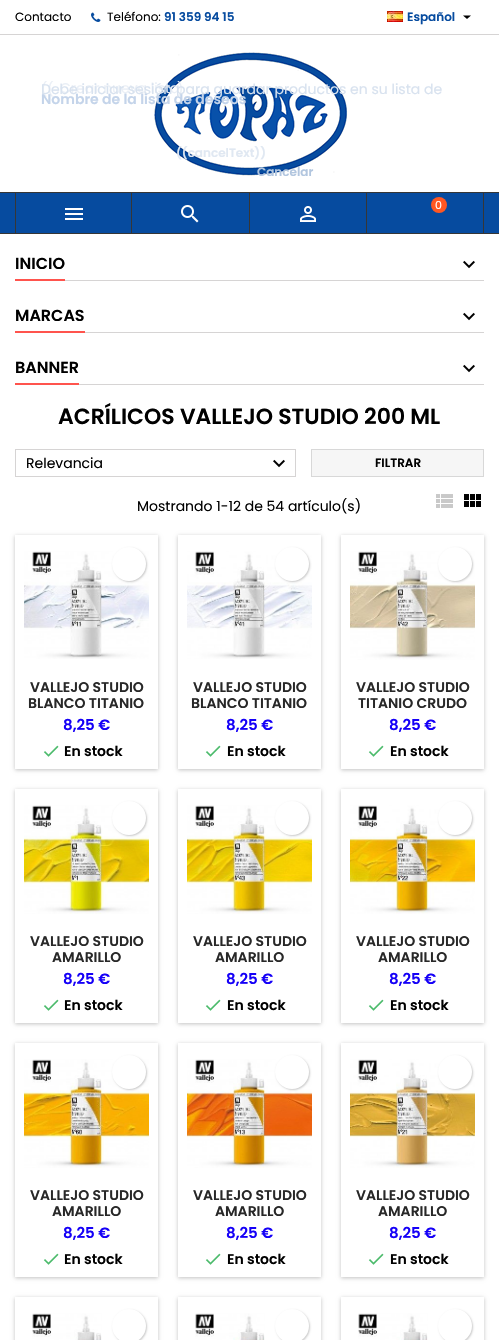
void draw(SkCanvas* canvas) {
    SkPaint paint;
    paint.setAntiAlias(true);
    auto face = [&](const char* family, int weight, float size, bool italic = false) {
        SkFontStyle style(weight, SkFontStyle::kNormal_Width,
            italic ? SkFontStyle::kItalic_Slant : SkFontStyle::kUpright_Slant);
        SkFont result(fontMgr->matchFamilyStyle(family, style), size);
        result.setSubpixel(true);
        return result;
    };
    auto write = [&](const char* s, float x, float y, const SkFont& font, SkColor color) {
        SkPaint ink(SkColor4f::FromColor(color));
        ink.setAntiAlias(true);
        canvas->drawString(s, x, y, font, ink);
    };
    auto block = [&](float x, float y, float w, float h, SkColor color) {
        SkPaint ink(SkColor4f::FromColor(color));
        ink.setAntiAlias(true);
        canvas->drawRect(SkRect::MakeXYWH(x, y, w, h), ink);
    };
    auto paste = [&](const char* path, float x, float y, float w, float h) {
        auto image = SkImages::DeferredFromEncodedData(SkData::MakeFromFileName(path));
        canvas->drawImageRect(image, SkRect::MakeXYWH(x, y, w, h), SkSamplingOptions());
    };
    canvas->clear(SK_ColorWHITE);
    block(0, 34, 499, 1, SkColorSetRGB(214, 212, 212));
    auto kFont1 = face("Poppins", 400, 12);
    write("Contacto", 15, 21, kFont1, SK_ColorBLACK);
    paste("pic1.png", 91, 12, 10, 10);
    write("Teléfono:", 107, 21, kFont1, SK_ColorBLACK);
    auto kFont2 = face("Poppins", 600, 12);
    write("91 359 94 15", 164, 21, kFont2, SkColorSetRGB(6, 75, 159));
    paste("pic2.png", 387, 11, 16, 11);
    write("Español", 407, 21, kFont2, SkColorSetRGB(6, 75, 159));
    paint.setColor(SK_ColorBLACK);
    canvas->drawPath(SkPathBuilder().moveTo(463, 15.5f).lineTo(471, 15.5f).lineTo(467, 19).close().detach(), paint);
    paste("pic3.png", 154, 52, 194, 124);
    block(0, 193, 499, 40, SkColorSetRGB(6, 75, 159));
    block(0, 192, 499, 1, SkColorSetRGB(54, 54, 54));
    block(0, 233, 499, 1, SkColorSetRGB(54, 54, 54));
    block(131, 193, 1, 40, SkColorSetRGB(54, 54, 54));
    block(15, 193, 1, 40, SkColorSetRGB(54, 54, 54));
    paste("pic4.png", 65, 208, 18, 12);
    block(249, 193, 1, 40, SkColorSetRGB(54, 54, 54));
    paste("pic5.png", 181, 205, 18, 18);
    block(366, 193, 1, 40, SkColorSetRGB(54, 54, 54));
    paste("pic6.png", 300, 206, 16, 16);
    block(483, 193, 1, 40, SkColorSetRGB(54, 54, 54));
    paint.setColor(SkColorSetRGB(255, 87, 34));
    canvas->drawCircle(439, 205, 8, paint);
    auto kFont3 = face("Poppins", 400, 11);
    write("0", 435, 209, kFont3, SK_ColorWHITE);
    auto kFont4 = face("Poppins", 400, 14);
    write("((", 41, 94, kFont4, SkColorSetRGB(234, 239, 246));
    write("Crear nueva lista", 60, 93, kFont4, SkColorSetRGB(234, 239, 246));
    write(")", 177, 94, kFont4, SkColorSetRGB(234, 239, 246));
    write("((cancelText))", 176, 157, kFont2, SkColorSetRGB(224, 232, 242));
    auto kFont5 = face("Poppins", 600, 14);
    write("Nombre de la lista de deseos", 41, 104, kFont5, SkColorSetRGB(196, 212, 234));
    write("Debe iniciar sesión para guardar productos en su lista de", 41, 94, kFont4, SkColorSetRGB(216, 226, 239));
    write("Cancelar", 257, 176, kFont2, SkColorSetRGB(178, 198, 223));
    block(65, 280, 419, 1, SkColorSetRGB(214, 212, 212));
    block(15, 279, 50, 2, SkColorSetRGB(255, 84, 77));
    auto kFont6 = face("Poppins", 600, 16);
    write("INICIO", 15, 269, kFont6, SK_ColorBLACK);
    paste("pic7.png", 463, 260, 12, 9);
    block(85, 332, 399, 1, SkColorSetRGB(214, 212, 212));
    block(15, 331, 70, 2, SkColorSetRGB(255, 84, 77));
    write("MARCAS", 15, 321, kFont6, SK_ColorBLACK);
    paste("pic7.png", 463, 312, 12, 9);
    block(79, 384, 405, 1, SkColorSetRGB(214, 212, 212));
    block(15, 383, 64, 2, SkColorSetRGB(255, 84, 77));
    write("BANNER", 15, 373, kFont6, SK_ColorBLACK);
    paste("pic7.png", 463, 364, 12, 9);
    auto kFont7 = face("Poppins", 600, 22);
    write("ACRÍLICOS VALLEJO STUDIO 200 ML", 58, 424, kFont7, SK_ColorBLACK);
    paint.setStyle(SkPaint::kStroke_Style);
    paint.setStrokeWidth(1);
    paint.setColor(SkColorSetRGB(214, 212, 212));
    canvas->drawRect(SkRect::MakeXYWH(15.5f, 449.5f, 280, 27), paint);
    write("Relevancia", 26, 468, kFont4, SK_ColorBLACK);
    paste("pic7.png", 273, 459, 12, 9);
    paint.setStyle(SkPaint::kFill_Style);
    paint.setColor(SkColorSetRGB(246, 246, 246));
    canvas->drawRect(SkRect::MakeXYWH(311.5f, 449.5f, 172, 27), paint);
    paint.setStyle(SkPaint::kStroke_Style);
    paint.setColor(SkColorSetRGB(216, 216, 216));
    canvas->drawRect(SkRect::MakeXYWH(311.5f, 449.5f, 172, 27), paint);
    write("FILTRAR", 375, 467, kFont2, SK_ColorBLACK);
    write("Mostrando 1-12 de 54 artículo(s)", 137, 511, kFont4, SK_ColorBLACK);
    paste("pic8.png", 436, 494, 17, 14);
    paste("pic9.png", 464, 494, 17, 13);
    canvas->save();
    canvas->clipPath(SkPathBuilder(SkPathFillType::kEvenOdd).moveTo(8, 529).lineTo(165, 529).lineTo(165, 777).lineTo(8, 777).close().moveTo(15, 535).lineTo(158, 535).lineTo(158, 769).lineTo(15, 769).close().detach(), true);
    paint.setStyle(SkPaint::kFill_Style);
    paint.setColor(SkColorSetARGB(61, 0, 0, 0));
    paint.setMaskFilter(SkMaskFilter::MakeBlur(kNormal_SkBlurStyle, 2));
    canvas->drawRect(SkRect::MakeXYWH(15, 536, 143, 234), paint);
    paint.setMaskFilter(nullptr);
    canvas->restore();
    paste("pic10.png", 24, 551, 125, 108);
    paint.setColor(SkColorSetARGB(51, 0, 0, 0));
    paint.setMaskFilter(SkMaskFilter::MakeBlur(kNormal_SkBlurStyle, 1));
    canvas->drawRoundRect(SkRect::MakeXYWH(113, 548, 34, 34), 17, 17, paint);
    paint.setMaskFilter(nullptr);
    paint.setColor(SK_ColorWHITE);
    canvas->drawCircle(129, 564, 17, paint);
    write("VALLEJO STUDIO", 30, 692, kFont5, SkColorSetRGB(40, 40, 40));
    write("BLANCO TITANIO", 28, 708, kFont5, SkColorSetRGB(40, 40, 40));
    auto kFont8 = face("Poppins", 600, 15);
    write("8,25 €", 63, 730, kFont8, SkColorSetRGB(21, 0, 247));
    paste("pic11.png", 43, 745, 16, 12);
    write("En stock", 64, 756, kFont5, SK_ColorBLACK);
    canvas->save();
    canvas->clipPath(SkPathBuilder(SkPathFillType::kEvenOdd).moveTo(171, 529).lineTo(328, 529).lineTo(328, 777).lineTo(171, 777).close().moveTo(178, 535).lineTo(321, 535).lineTo(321, 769).lineTo(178, 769).close().detach(), true);
    paint.setColor(SkColorSetARGB(61, 0, 0, 0));
    paint.setMaskFilter(SkMaskFilter::MakeBlur(kNormal_SkBlurStyle, 2));
    canvas->drawRect(SkRect::MakeXYWH(178, 536, 143, 234), paint);
    paint.setMaskFilter(nullptr);
    canvas->restore();
    paste("pic12.png", 187, 551, 125, 108);
    paint.setColor(SkColorSetARGB(51, 0, 0, 0));
    paint.setMaskFilter(SkMaskFilter::MakeBlur(kNormal_SkBlurStyle, 1));
    canvas->drawRoundRect(SkRect::MakeXYWH(276, 548, 34, 34), 17, 17, paint);
    paint.setMaskFilter(nullptr);
    paint.setColor(SK_ColorWHITE);
    canvas->drawCircle(292, 564, 17, paint);
    write("VALLEJO STUDIO", 193, 692, kFont5, SkColorSetRGB(40, 40, 40));
    write("BLANCO TITANIO", 191, 708, kFont5, SkColorSetRGB(40, 40, 40));
    write("8,25 €", 226, 730, kFont8, SkColorSetRGB(21, 0, 247));
    paste("pic11.png", 205, 745, 16, 12);
    write("En stock", 227, 756, kFont5, SK_ColorBLACK);
    canvas->save();
    canvas->clipPath(SkPathBuilder(SkPathFillType::kEvenOdd).moveTo(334, 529).lineTo(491, 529).lineTo(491, 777).lineTo(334, 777).close().moveTo(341, 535).lineTo(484, 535).lineTo(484, 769).lineTo(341, 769).close().detach(), true);
    paint.setColor(SkColorSetARGB(61, 0, 0, 0));
    paint.setMaskFilter(SkMaskFilter::MakeBlur(kNormal_SkBlurStyle, 2));
    canvas->drawRect(SkRect::MakeXYWH(341, 536, 143, 234), paint);
    paint.setMaskFilter(nullptr);
    canvas->restore();
    paste("pic13.png", 350, 551, 125, 109);
    paint.setColor(SkColorSetARGB(51, 0, 0, 0));
    paint.setMaskFilter(SkMaskFilter::MakeBlur(kNormal_SkBlurStyle, 1));
    canvas->drawRoundRect(SkRect::MakeXYWH(439, 548, 34, 34), 17, 17, paint);
    paint.setMaskFilter(nullptr);
    paint.setColor(SK_ColorWHITE);
    canvas->drawCircle(455, 564, 17, paint);
    write("VALLEJO STUDIO", 356, 692, kFont5, SkColorSetRGB(40, 40, 40));
    write("TITANIO CRUDO", 358, 708, kFont5, SkColorSetRGB(40, 40, 40));
    write("8,25 €", 389, 730, kFont8, SkColorSetRGB(21, 0, 247));
    paste("pic11.png", 368, 745, 16, 12);
    write("En stock", 390, 756, kFont5, SK_ColorBLACK);
    canvas->save();
    canvas->clipPath(SkPathBuilder(SkPathFillType::kEvenOdd).moveTo(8, 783).lineTo(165, 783).lineTo(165, 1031).lineTo(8, 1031).close().moveTo(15, 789).lineTo(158, 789).lineTo(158, 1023).lineTo(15, 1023).close().detach(), true);
    paint.setColor(SkColorSetARGB(61, 0, 0, 0));
    paint.setMaskFilter(SkMaskFilter::MakeBlur(kNormal_SkBlurStyle, 2));
    canvas->drawRect(SkRect::MakeXYWH(15, 790, 143, 234), paint);
    paint.setMaskFilter(nullptr);
    canvas->restore();
    paste("pic14.png", 24, 805, 125, 109);
    paint.setColor(SkColorSetARGB(51, 0, 0, 0));
    paint.setMaskFilter(SkMaskFilter::MakeBlur(kNormal_SkBlurStyle, 1));
    canvas->drawRoundRect(SkRect::MakeXYWH(113, 802, 34, 34), 17, 17, paint);
    paint.setMaskFilter(nullptr);
    paint.setColor(SK_ColorWHITE);
    canvas->drawCircle(129, 818, 17, paint);
    write("VALLEJO STUDIO", 30, 946, kFont5, SkColorSetRGB(40, 40, 40));
    write("AMARILLO", 52, 962, kFont5, SkColorSetRGB(40, 40, 40));
    write("8,25 €", 63, 984, kFont8, SkColorSetRGB(21, 0, 247));
    paste("pic11.png", 43, 999, 16, 12);
    write("En stock", 64, 1010, kFont5, SK_ColorBLACK);
    canvas->save();
    canvas->clipPath(SkPathBuilder(SkPathFillType::kEvenOdd).moveTo(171, 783).lineTo(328, 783).lineTo(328, 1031).lineTo(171, 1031).close().moveTo(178, 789).lineTo(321, 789).lineTo(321, 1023).lineTo(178, 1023).close().detach(), true);
    paint.setColor(SkColorSetARGB(61, 0, 0, 0));
    paint.setMaskFilter(SkMaskFilter::MakeBlur(kNormal_SkBlurStyle, 2));
    canvas->drawRect(SkRect::MakeXYWH(178, 790, 143, 234), paint);
    paint.setMaskFilter(nullptr);
    canvas->restore();
    paste("pic15.png", 187, 805, 125, 109);
    paint.setColor(SkColorSetARGB(51, 0, 0, 0));
    paint.setMaskFilter(SkMaskFilter::MakeBlur(kNormal_SkBlurStyle, 1));
    canvas->drawRoundRect(SkRect::MakeXYWH(276, 802, 34, 34), 17, 17, paint);
    paint.setMaskFilter(nullptr);
    paint.setColor(SK_ColorWHITE);
    canvas->drawCircle(292, 818, 17, paint);
    write("VALLEJO STUDIO", 193, 946, kFont5, SkColorSetRGB(40, 40, 40));
    write("AMARILLO", 215, 962, kFont5, SkColorSetRGB(40, 40, 40));
    write("8,25 €", 226, 984, kFont8, SkColorSetRGB(21, 0, 247));
    paste("pic11.png", 205, 999, 16, 12);
    write("En stock", 227, 1010, kFont5, SK_ColorBLACK);
    canvas->save();
    canvas->clipPath(SkPathBuilder(SkPathFillType::kEvenOdd).moveTo(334, 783).lineTo(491, 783).lineTo(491, 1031).lineTo(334, 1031).close().moveTo(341, 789).lineTo(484, 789).lineTo(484, 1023).lineTo(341, 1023).close().detach(), true);
    paint.setColor(SkColorSetARGB(61, 0, 0, 0));
    paint.setMaskFilter(SkMaskFilter::MakeBlur(kNormal_SkBlurStyle, 2));
    canvas->drawRect(SkRect::MakeXYWH(341, 790, 143, 234), paint);
    paint.setMaskFilter(nullptr);
    canvas->restore();
    paste("pic16.png", 350, 805, 125, 109);
    paint.setColor(SkColorSetARGB(51, 0, 0, 0));
    paint.setMaskFilter(SkMaskFilter::MakeBlur(kNormal_SkBlurStyle, 1));
    canvas->drawRoundRect(SkRect::MakeXYWH(439, 802, 34, 34), 17, 17, paint);
    paint.setMaskFilter(nullptr);
    paint.setColor(SK_ColorWHITE);
    canvas->drawCircle(455, 818, 17, paint);
    write("VALLEJO STUDIO", 356, 946, kFont5, SkColorSetRGB(40, 40, 40));
    write("AMARILLO", 378, 962, kFont5, SkColorSetRGB(40, 40, 40));
    write("8,25 €", 389, 984, kFont8, SkColorSetRGB(21, 0, 247));
    paste("pic11.png", 368, 999, 16, 12);
    write("En stock", 390, 1010, kFont5, SK_ColorBLACK);
    canvas->save();
    canvas->clipPath(SkPathBuilder(SkPathFillType::kEvenOdd).moveTo(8, 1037).lineTo(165, 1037).lineTo(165, 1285).lineTo(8, 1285).close().moveTo(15, 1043).lineTo(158, 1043).lineTo(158, 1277).lineTo(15, 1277).close().detach(), true);
    paint.setColor(SkColorSetARGB(61, 0, 0, 0));
    paint.setMaskFilter(SkMaskFilter::MakeBlur(kNormal_SkBlurStyle, 2));
    canvas->drawRect(SkRect::MakeXYWH(15, 1044, 143, 234), paint);
    paint.setMaskFilter(nullptr);
    canvas->restore();
    paste("pic17.png", 24, 1059, 125, 109);
    paint.setColor(SkColorSetARGB(51, 0, 0, 0));
    paint.setMaskFilter(SkMaskFilter::MakeBlur(kNormal_SkBlurStyle, 1));
    canvas->drawRoundRect(SkRect::MakeXYWH(113, 1056, 34, 34), 17, 17, paint);
    paint.setMaskFilter(nullptr);
    paint.setColor(SK_ColorWHITE);
    canvas->drawCircle(129, 1072, 17, paint);
    write("VALLEJO STUDIO", 30, 1200, kFont5, SkColorSetRGB(40, 40, 40));
    write("AMARILLO", 52, 1216, kFont5, SkColorSetRGB(40, 40, 40));
    write("8,25 €", 63, 1238, kFont8, SkColorSetRGB(21, 0, 247));
    paste("pic11.png", 43, 1253, 16, 12);
    write("En stock", 64, 1264, kFont5, SK_ColorBLACK);
    canvas->save();
    canvas->clipPath(SkPathBuilder(SkPathFillType::kEvenOdd).moveTo(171, 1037).lineTo(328, 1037).lineTo(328, 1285).lineTo(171, 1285).close().moveTo(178, 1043).lineTo(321, 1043).lineTo(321, 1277).lineTo(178, 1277).close().detach(), true);
    paint.setColor(SkColorSetARGB(61, 0, 0, 0));
    paint.setMaskFilter(SkMaskFilter::MakeBlur(kNormal_SkBlurStyle, 2));
    canvas->drawRect(SkRect::MakeXYWH(178, 1044, 143, 234), paint);
    paint.setMaskFilter(nullptr);
    canvas->restore();
    paste("pic18.png", 187, 1059, 125, 109);
    paint.setColor(SkColorSetARGB(51, 0, 0, 0));
    paint.setMaskFilter(SkMaskFilter::MakeBlur(kNormal_SkBlurStyle, 1));
    canvas->drawRoundRect(SkRect::MakeXYWH(276, 1056, 34, 34), 17, 17, paint);
    paint.setMaskFilter(nullptr);
    paint.setColor(SK_ColorWHITE);
    canvas->drawCircle(292, 1072, 17, paint);
    write("VALLEJO STUDIO", 193, 1200, kFont5, SkColorSetRGB(40, 40, 40));
    write("AMARILLO", 215, 1216, kFont5, SkColorSetRGB(40, 40, 40));
    write("8,25 €", 226, 1238, kFont8, SkColorSetRGB(21, 0, 247));
    paste("pic11.png", 205, 1253, 16, 12);
    write("En stock", 227, 1264, kFont5, SK_ColorBLACK);
    canvas->save();
    canvas->clipPath(SkPathBuilder(SkPathFillType::kEvenOdd).moveTo(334, 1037).lineTo(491, 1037).lineTo(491, 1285).lineTo(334, 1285).close().moveTo(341, 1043).lineTo(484, 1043).lineTo(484, 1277).lineTo(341, 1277).close().detach(), true);
    paint.setColor(SkColorSetARGB(61, 0, 0, 0));
    paint.setMaskFilter(SkMaskFilter::MakeBlur(kNormal_SkBlurStyle, 2));
    canvas->drawRect(SkRect::MakeXYWH(341, 1044, 143, 234), paint);
    paint.setMaskFilter(nullptr);
    canvas->restore();
    paste("pic19.png", 350, 1059, 125, 109);
    paint.setColor(SkColorSetARGB(51, 0, 0, 0));
    paint.setMaskFilter(SkMaskFilter::MakeBlur(kNormal_SkBlurStyle, 1));
    canvas->drawRoundRect(SkRect::MakeXYWH(439, 1056, 34, 34), 17, 17, paint);
    paint.setMaskFilter(nullptr);
    paint.setColor(SK_ColorWHITE);
    canvas->drawCircle(455, 1072, 17, paint);
    write("VALLEJO STUDIO", 356, 1200, kFont5, SkColorSetRGB(40, 40, 40));
    write("AMARILLO", 378, 1216, kFont5, SkColorSetRGB(40, 40, 40));
    write("8,25 €", 389, 1238, kFont8, SkColorSetRGB(21, 0, 247));
    paste("pic11.png", 368, 1253, 16, 12);
    write("En stock", 390, 1264, kFont5, SK_ColorBLACK);
    canvas->save();
    canvas->clipPath(SkPathBuilder(SkPathFillType::kEvenOdd).moveTo(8, 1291).lineTo(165, 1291).lineTo(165, 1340).lineTo(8, 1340).close().moveTo(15, 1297).lineTo(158, 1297).lineTo(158, 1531).lineTo(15, 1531).close().detach(), true);
    paint.setColor(SkColorSetARGB(61, 0, 0, 0));
    paint.setMaskFilter(SkMaskFilter::MakeBlur(kNormal_SkBlurStyle, 2));
    canvas->drawRect(SkRect::MakeXYWH(15, 1298, 143, 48), paint);
    paint.setMaskFilter(nullptr);
    canvas->restore();
    paste("pic20.png", 32, 1313, 70, 27);
    paint.setColor(SkColorSetARGB(51, 0, 0, 0));
    paint.setMaskFilter(SkMaskFilter::MakeBlur(kNormal_SkBlurStyle, 1));
    canvas->drawRoundRect(SkRect::MakeXYWH(113, 1310, 34, 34), 17, 17, paint);
    paint.setMaskFilter(nullptr);
    paint.setColor(SK_ColorWHITE);
    canvas->drawCircle(129, 1326, 17, paint);
    canvas->save();
    canvas->clipPath(SkPathBuilder(SkPathFillType::kEvenOdd).moveTo(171, 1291).lineTo(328, 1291).lineTo(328, 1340).lineTo(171, 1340).close().moveTo(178, 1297).lineTo(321, 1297).lineTo(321, 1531).lineTo(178, 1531).close().detach(), true);
    paint.setColor(SkColorSetARGB(61, 0, 0, 0));
    paint.setMaskFilter(SkMaskFilter::MakeBlur(kNormal_SkBlurStyle, 2));
    canvas->drawRect(SkRect::MakeXYWH(178, 1298, 143, 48), paint);
    paint.setMaskFilter(nullptr);
    canvas->restore();
    paste("pic21.png", 195, 1313, 70, 27);
    paint.setColor(SkColorSetARGB(51, 0, 0, 0));
    paint.setMaskFilter(SkMaskFilter::MakeBlur(kNormal_SkBlurStyle, 1));
    canvas->drawRoundRect(SkRect::MakeXYWH(276, 1310, 34, 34), 17, 17, paint);
    paint.setMaskFilter(nullptr);
    paint.setColor(SK_ColorWHITE);
    canvas->drawCircle(292, 1326, 17, paint);
    canvas->save();
    canvas->clipPath(SkPathBuilder(SkPathFillType::kEvenOdd).moveTo(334, 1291).lineTo(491, 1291).lineTo(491, 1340).lineTo(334, 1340).close().moveTo(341, 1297).lineTo(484, 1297).lineTo(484, 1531).lineTo(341, 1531).close().detach(), true);
    paint.setColor(SkColorSetARGB(61, 0, 0, 0));
    paint.setMaskFilter(SkMaskFilter::MakeBlur(kNormal_SkBlurStyle, 2));
    canvas->drawRect(SkRect::MakeXYWH(341, 1298, 143, 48), paint);
    paint.setMaskFilter(nullptr);
    canvas->restore();
    paste("pic22.png", 358, 1313, 70, 27);
    paint.setColor(SkColorSetARGB(51, 0, 0, 0));
    paint.setMaskFilter(SkMaskFilter::MakeBlur(kNormal_SkBlurStyle, 1));
    canvas->drawRoundRect(SkRect::MakeXYWH(439, 1310, 34, 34), 17, 17, paint);
    paint.setMaskFilter(nullptr);
    paint.setColor(SK_ColorWHITE);
    canvas->drawCircle(455, 1326, 17, paint);
}
